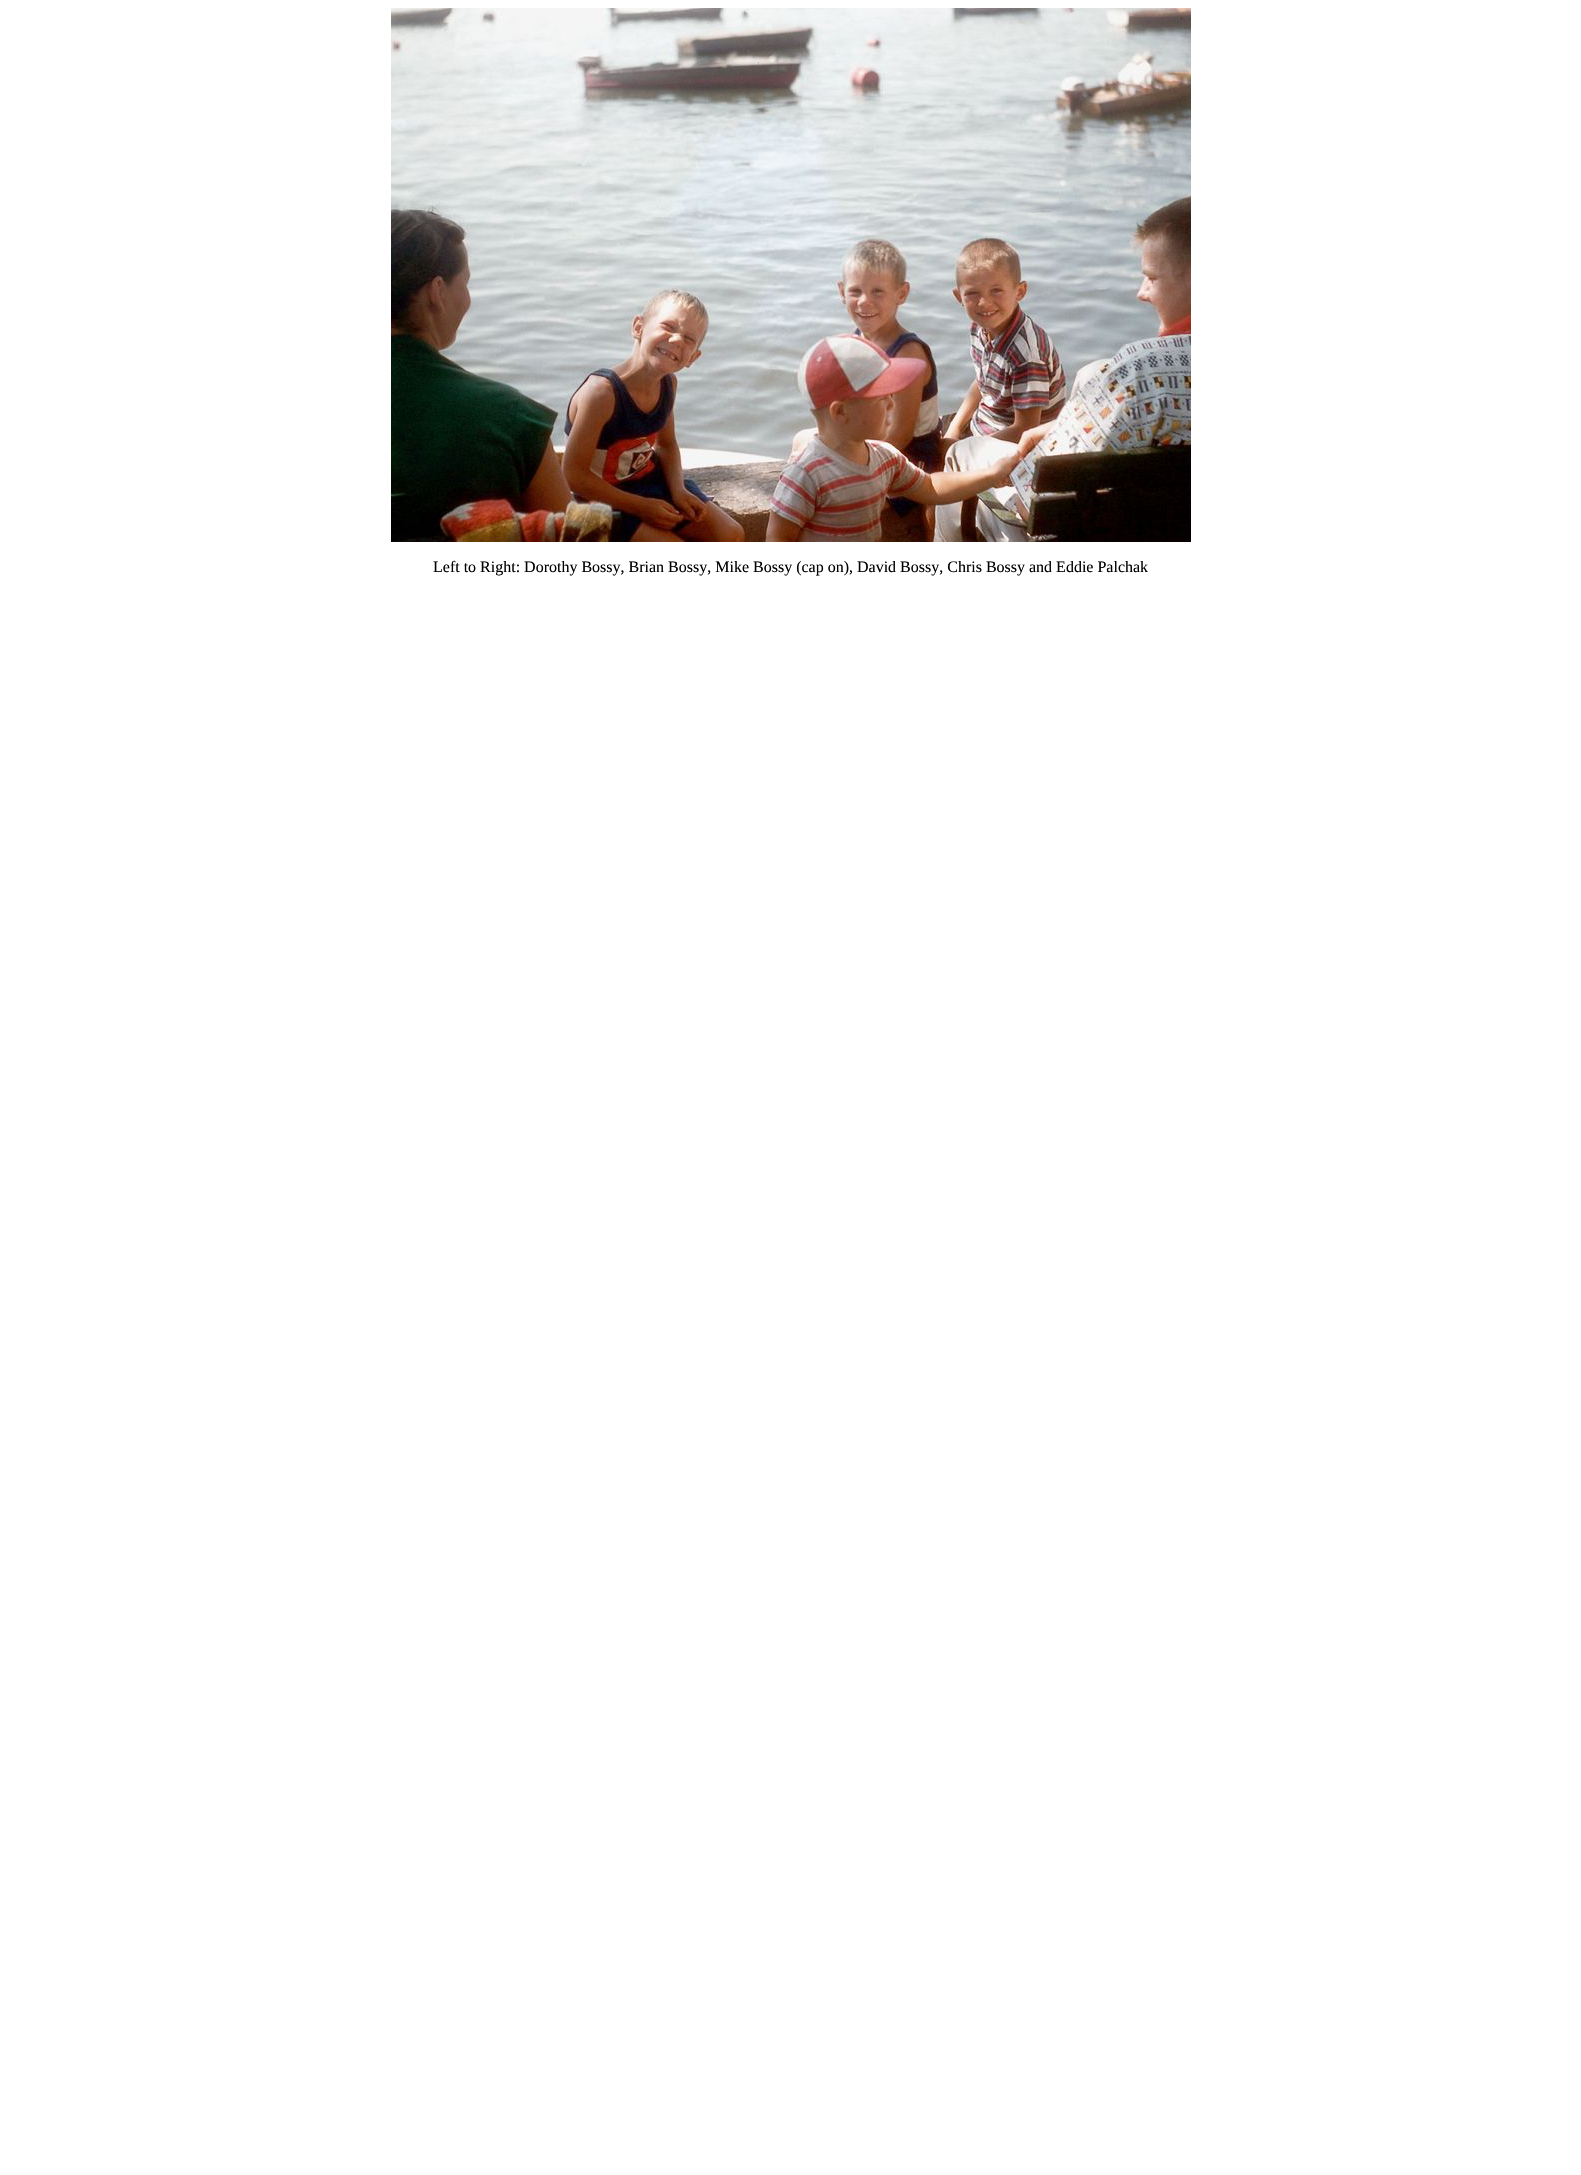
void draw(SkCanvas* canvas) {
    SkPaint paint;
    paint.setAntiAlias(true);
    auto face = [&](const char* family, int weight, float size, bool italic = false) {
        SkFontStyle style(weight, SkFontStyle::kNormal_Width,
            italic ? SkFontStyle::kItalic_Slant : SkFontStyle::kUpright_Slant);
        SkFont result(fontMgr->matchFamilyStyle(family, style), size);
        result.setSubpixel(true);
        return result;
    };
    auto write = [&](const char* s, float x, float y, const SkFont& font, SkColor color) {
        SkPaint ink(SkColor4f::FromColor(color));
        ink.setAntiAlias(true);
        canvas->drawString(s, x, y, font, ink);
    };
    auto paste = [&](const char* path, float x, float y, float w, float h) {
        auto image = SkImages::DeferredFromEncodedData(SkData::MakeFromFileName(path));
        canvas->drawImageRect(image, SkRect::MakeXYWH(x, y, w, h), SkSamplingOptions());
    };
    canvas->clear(SK_ColorWHITE);
    paste("pic1.png", 391, 8, 800, 534);
    auto kFont1 = face("Liberation Serif", 400, 16);
    write("Left to Right: Dorothy Bossy, Brian Bossy, Mike Bossy (cap on), David Bossy, Chris Bossy and Eddie Palchak", 433, 572, kFont1, SK_ColorBLACK);
}
